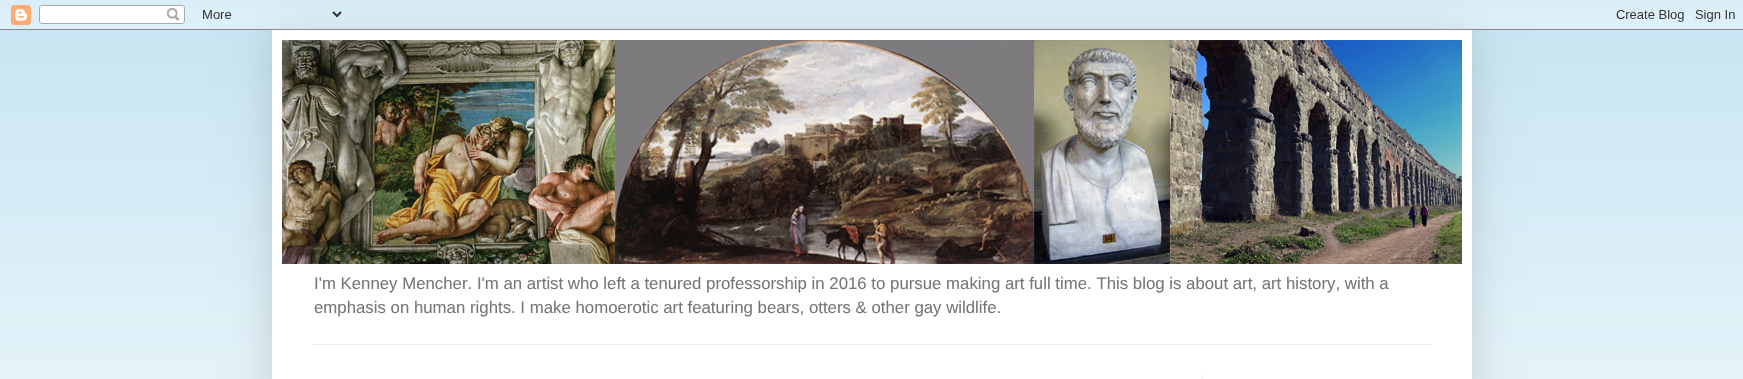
void draw(SkCanvas* canvas) {
    SkPaint paint;
    paint.setAntiAlias(true);
    auto face = [&](const char* family, int weight, float size, bool italic = false) {
        SkFontStyle style(weight, SkFontStyle::kNormal_Width,
            italic ? SkFontStyle::kItalic_Slant : SkFontStyle::kUpright_Slant);
        SkFont result(fontMgr->matchFamilyStyle(family, style), size);
        result.setSubpixel(true);
        return result;
    };
    auto write = [&](const char* s, float x, float y, const SkFont& font, SkColor color) {
        SkPaint ink(SkColor4f::FromColor(color));
        ink.setAntiAlias(true);
        canvas->drawString(s, x, y, font, ink);
    };
    auto block = [&](float x, float y, float w, float h, SkColor color) {
        SkPaint ink(SkColor4f::FromColor(color));
        ink.setAntiAlias(true);
        canvas->drawRect(SkRect::MakeXYWH(x, y, w, h), ink);
    };
    auto paste = [&](const char* path, float x, float y, float w, float h) {
        auto image = SkImages::DeferredFromEncodedData(SkData::MakeFromFileName(path));
        canvas->drawImageRect(image, SkRect::MakeXYWH(x, y, w, h), SkSamplingOptions());
    };
    canvas->clear(SkColorSetRGB(194, 227, 242));
    paste("pic2.png", 0, 10, 1743, 369);
    paint.setColor(SkColorSetARGB(38, 0, 0, 0));
    paint.setMaskFilter(SkMaskFilter::MakeBlur(kNormal_SkBlurStyle, 20));
    canvas->drawRect(SkRect::MakeXYWH(272, 30, 1200, 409), paint);
    paint.setMaskFilter(nullptr);
    paste("pic1.png", 0, 0, 1743, 30);
    block(272, 30, 1200, 349, SK_ColorWHITE);
    paste("pic3.png", 282, 40, 1180, 224);
    auto kFont1 = face("Liberation Sans", 400, 16.8f);
    write("I'm Kenney Mencher. I'm an artist who left a tenured professorship in 2016 to pursue making art full time. This blog is about art, art history, with a", 314, 289, kFont1, SkColorSetRGB(119, 119, 119));
    write("emphasis on human rights. I make homoerotic art featuring bears, otters & other gay wildlife.", 314, 313, kFont1, SkColorSetRGB(119, 119, 119));
    block(312, 344, 1120, 1, SkColorSetRGB(238, 238, 238));
    block(1202, 375, 1, 4, SkColorSetRGB(238, 238, 238));
}
